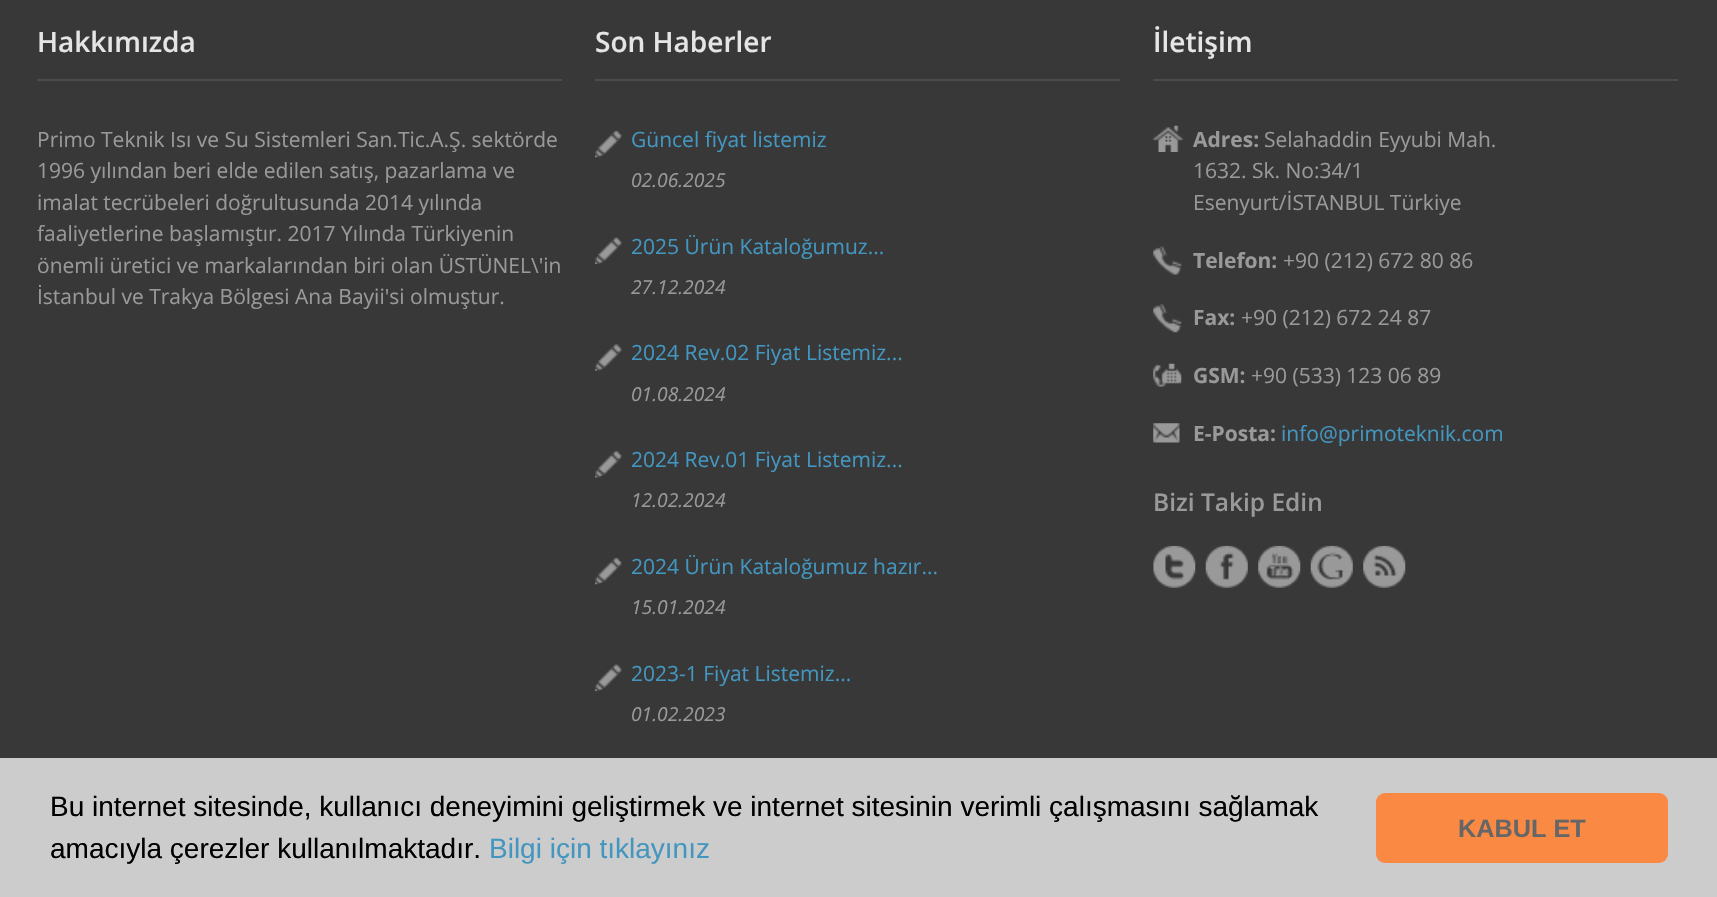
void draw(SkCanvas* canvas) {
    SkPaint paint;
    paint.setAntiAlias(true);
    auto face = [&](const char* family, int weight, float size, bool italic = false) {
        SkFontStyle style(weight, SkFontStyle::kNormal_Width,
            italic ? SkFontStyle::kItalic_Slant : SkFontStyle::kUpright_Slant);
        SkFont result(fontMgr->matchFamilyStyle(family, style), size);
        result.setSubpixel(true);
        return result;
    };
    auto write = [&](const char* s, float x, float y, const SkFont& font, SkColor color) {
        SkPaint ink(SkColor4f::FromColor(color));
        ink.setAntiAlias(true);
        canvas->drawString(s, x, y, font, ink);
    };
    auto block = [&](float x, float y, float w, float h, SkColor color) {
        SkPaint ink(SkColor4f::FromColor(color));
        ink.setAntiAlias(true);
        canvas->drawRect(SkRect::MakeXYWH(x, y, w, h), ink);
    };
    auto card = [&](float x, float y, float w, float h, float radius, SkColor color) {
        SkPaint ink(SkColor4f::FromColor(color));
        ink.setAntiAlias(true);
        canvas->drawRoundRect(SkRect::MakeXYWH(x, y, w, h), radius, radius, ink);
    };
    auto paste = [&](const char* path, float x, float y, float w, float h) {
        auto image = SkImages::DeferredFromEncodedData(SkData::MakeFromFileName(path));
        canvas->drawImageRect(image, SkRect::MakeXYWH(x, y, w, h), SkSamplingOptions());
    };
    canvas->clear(SkColorSetRGB(56, 56, 56));
    block(37, 79, 525, 2, SkColorSetRGB(76, 76, 76));
    auto kFont1 = face("Open Sans", 600, 28);
    write("Hakkımızda", 37, 52, kFont1, SkColorSetRGB(229, 229, 229));
    auto kFont2 = face("Open Sans", 400, 21);
    write("Primo Teknik Isı ve Su Sistemleri San.Tic.A.Ş. sektörde", 37, 147, kFont2, SkColorSetRGB(153, 153, 153));
    write("1996 yılından beri elde edilen satış, pazarlama ve", 37, 178, kFont2, SkColorSetRGB(153, 153, 153));
    write("imalat tecrübeleri doğrultusunda 2014 yılında", 37, 210, kFont2, SkColorSetRGB(153, 153, 153));
    write("faaliyetlerine başlamıştır. 2017 Yılında Türkiyenin", 37, 241, kFont2, SkColorSetRGB(153, 153, 153));
    write("önemli üretici ve markalarından biri olan ÜSTÜNEL\\'in", 37, 273, kFont2, SkColorSetRGB(153, 153, 153));
    write("İstanbul ve Trakya Bölgesi Ana Bayii'si olmuştur.", 37, 304, kFont2, SkColorSetRGB(153, 153, 153));
    block(595, 79, 525, 2, SkColorSetRGB(76, 76, 76));
    write("Son Haberler", 595, 52, kFont1, SkColorSetRGB(229, 229, 229));
    paste("pic1.png", 595, 131, 27, 27);
    write("Güncel fiyat listemiz", 631, 147, kFont2, SkColorSetRGB(67, 150, 191));
    auto kFont3 = face("Open Sans", 400, 19.25f, true);
    write("02.06.2025", 631, 187, kFont3, SkColorSetRGB(153, 153, 153));
    paste("pic2.png", 595, 237, 27, 27);
    write("2025 Ürün Kataloğumuz...", 631, 254, kFont2, SkColorSetRGB(67, 150, 191));
    write("27.12.2024", 631, 294, kFont3, SkColorSetRGB(153, 153, 153));
    paste("pic3.png", 595, 344, 27, 27);
    write("2024 Rev.02 Fiyat Listemiz...", 631, 360, kFont2, SkColorSetRGB(67, 150, 191));
    write("01.08.2024", 631, 401, kFont3, SkColorSetRGB(153, 153, 153));
    paste("pic4.png", 595, 451, 27, 27);
    write("2024 Rev.01 Fiyat Listemiz...", 631, 467, kFont2, SkColorSetRGB(67, 150, 191));
    write("12.02.2024", 631, 507, kFont3, SkColorSetRGB(153, 153, 153));
    paste("pic5.png", 595, 558, 27, 27);
    write("2024 Ürün Kataloğumuz hazır...", 631, 574, kFont2, SkColorSetRGB(67, 150, 191));
    write("15.01.2024", 631, 614, kFont3, SkColorSetRGB(153, 153, 153));
    paste("pic2.png", 595, 664, 27, 27);
    write("2023-1 Fiyat Listemiz...", 631, 681, kFont2, SkColorSetRGB(67, 150, 191));
    write("01.02.2023", 631, 721, kFont3, SkColorSetRGB(153, 153, 153));
    block(1153, 79, 525, 2, SkColorSetRGB(76, 76, 76));
    write("İletişim", 1153, 52, kFont1, SkColorSetRGB(229, 229, 229));
    paste("pic6.png", 1153, 125, 30, 27);
    auto kFont4 = face("Open Sans", 700, 21);
    write("Adres:", 1193, 147, kFont4, SkColorSetRGB(153, 153, 153));
    write("Selahaddin Eyyubi Mah.", 1264, 147, kFont2, SkColorSetRGB(153, 153, 153));
    write("1632. Sk. No:34/1", 1193, 178, kFont2, SkColorSetRGB(153, 153, 153));
    write("Esenyurt/İSTANBUL Türkiye", 1193, 210, kFont2, SkColorSetRGB(153, 153, 153));
    paste("pic7.png", 1153, 246, 29, 29);
    write("Telefon:", 1193, 268, kFont4, SkColorSetRGB(153, 153, 153));
    write("+90 (212) 672 80 86", 1283, 268, kFont2, SkColorSetRGB(153, 153, 153));
    paste("pic8.png", 1153, 304, 29, 29);
    write("Fax:", 1193, 325, kFont4, SkColorSetRGB(153, 153, 153));
    write("+90 (212) 672 24 87", 1241, 325, kFont2, SkColorSetRGB(153, 153, 153));
    paste("pic9.png", 1153, 363, 29, 24);
    write("GSM:", 1193, 383, kFont4, SkColorSetRGB(153, 153, 153));
    write("+90 (533) 123 06 89", 1251, 383, kFont2, SkColorSetRGB(153, 153, 153));
    paste("pic10.png", 1153, 423, 27, 20);
    write("E-Posta:", 1193, 441, kFont4, SkColorSetRGB(153, 153, 153));
    write("info@primoteknik.com", 1281, 441, kFont2, SkColorSetRGB(67, 150, 191));
    auto kFont5 = face("Open Sans", 600, 24.5f);
    write("Bizi Takip Edin", 1153, 511, kFont5, SkColorSetRGB(153, 153, 153));
    paste("pic11.png", 1153, 545, 43, 43);
    paste("pic12.png", 1205, 545, 43, 43);
    paste("pic13.png", 1258, 545, 43, 43);
    paste("pic14.png", 1310, 545, 43, 43);
    paste("pic15.png", 1363, 545, 43, 43);
    block(0, 758, 1717, 139, SkColorSetRGB(204, 204, 204));
    auto kFont6 = face("Liberation Sans", 400, 28);
    write("Bu internet sitesinde, kullanıcı deneyimini geliştirmek ve internet sitesinin verimli çalışmasını sağlamak", 50, 816, kFont6, SK_ColorBLACK);
    write("amacıyla çerezler kullanılmaktadır.", 50, 858, kFont6, SK_ColorBLACK);
    write("Bilgi için tıklayınız", 489, 858, kFont6, SkColorSetRGB(67, 150, 191));
    card(1376, 793, 292, 70, 9, SkColorSetRGB(250, 137, 67));
    auto kFont7 = face("Liberation Sans", 700, 25.25f);
    write("KABUL ET", 1458, 837, kFont7, SkColorSetRGB(102, 102, 102));
}
